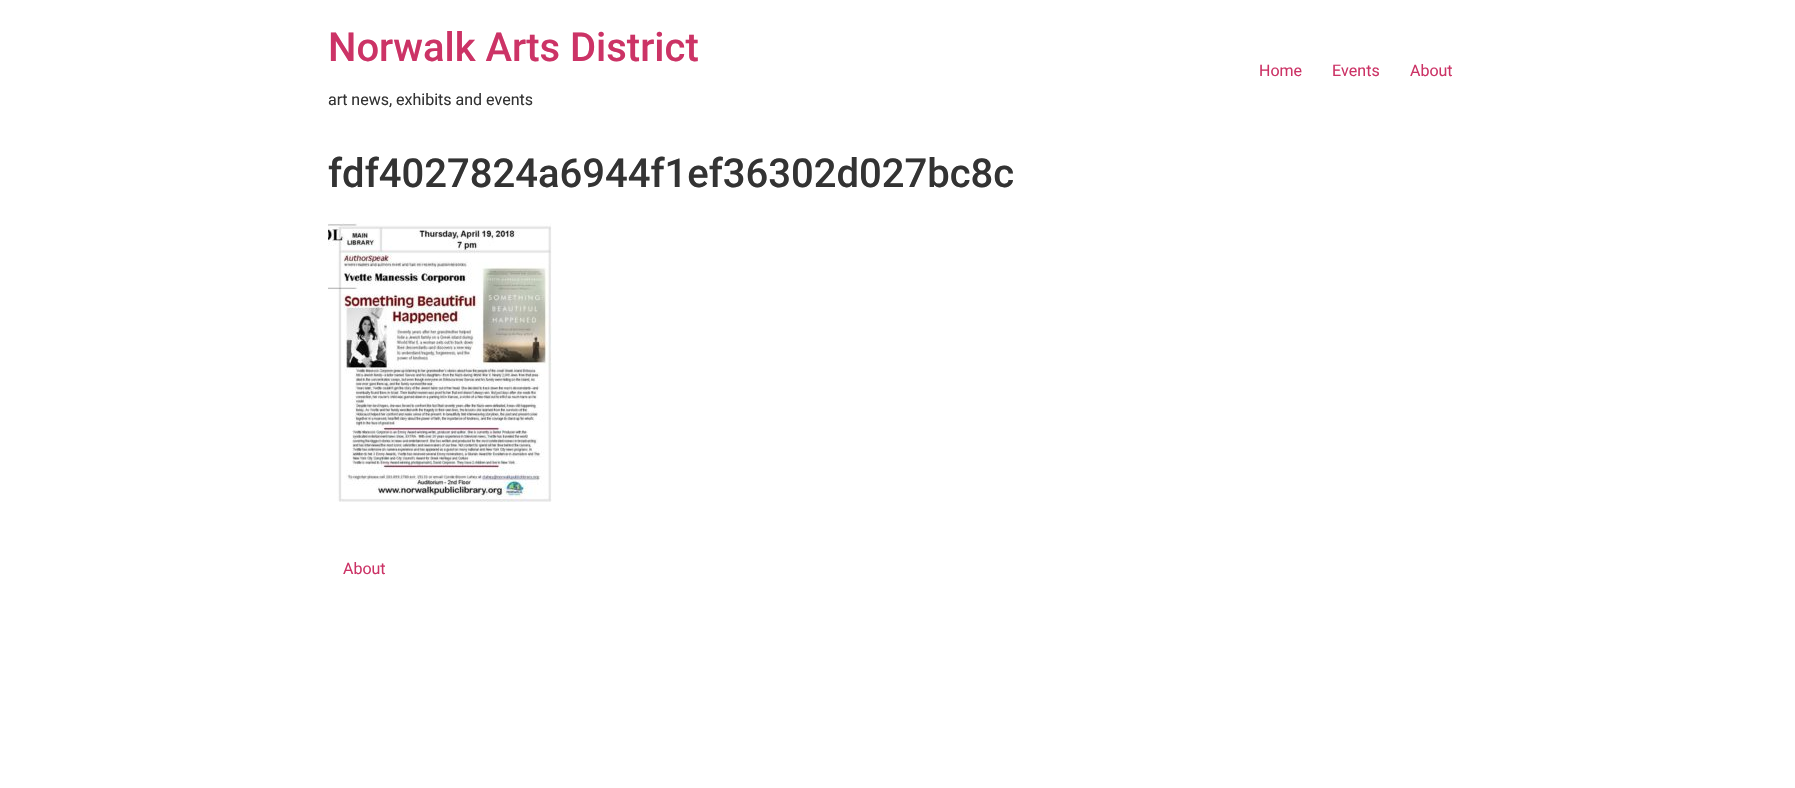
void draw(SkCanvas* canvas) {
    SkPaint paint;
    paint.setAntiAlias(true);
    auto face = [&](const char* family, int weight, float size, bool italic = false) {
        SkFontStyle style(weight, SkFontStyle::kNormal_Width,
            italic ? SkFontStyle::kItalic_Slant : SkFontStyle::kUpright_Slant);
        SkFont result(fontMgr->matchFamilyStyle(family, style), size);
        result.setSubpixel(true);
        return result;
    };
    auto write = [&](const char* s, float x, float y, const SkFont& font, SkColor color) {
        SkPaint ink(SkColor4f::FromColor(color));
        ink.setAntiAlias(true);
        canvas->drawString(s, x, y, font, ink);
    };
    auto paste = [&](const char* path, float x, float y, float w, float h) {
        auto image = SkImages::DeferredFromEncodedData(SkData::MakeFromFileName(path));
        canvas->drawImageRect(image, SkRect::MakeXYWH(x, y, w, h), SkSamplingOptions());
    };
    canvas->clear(SK_ColorWHITE);
    auto kFont1 = face("Roboto", 500, 40);
    write("Norwalk Arts District", 328, 61, kFont1, SkColorSetRGB(204, 51, 102));
    auto kFont2 = face("Roboto", 400, 16);
    write("art news, exhibits and events", 328, 105, kFont2, SkColorSetRGB(51, 51, 51));
    write("Home", 1259, 76, kFont2, SkColorSetRGB(204, 51, 102));
    write("Events", 1332, 76, kFont2, SkColorSetRGB(204, 51, 102));
    write("About", 1410, 76, kFont2, SkColorSetRGB(204, 51, 102));
    write("fdf4027824a6944f1ef36302d027bc8c", 328, 187, kFont1, SkColorSetRGB(51, 51, 51));
    paste("pic1.png", 328, 223, 224, 279);
    write("About", 343, 574, kFont2, SkColorSetRGB(204, 51, 102));
}
